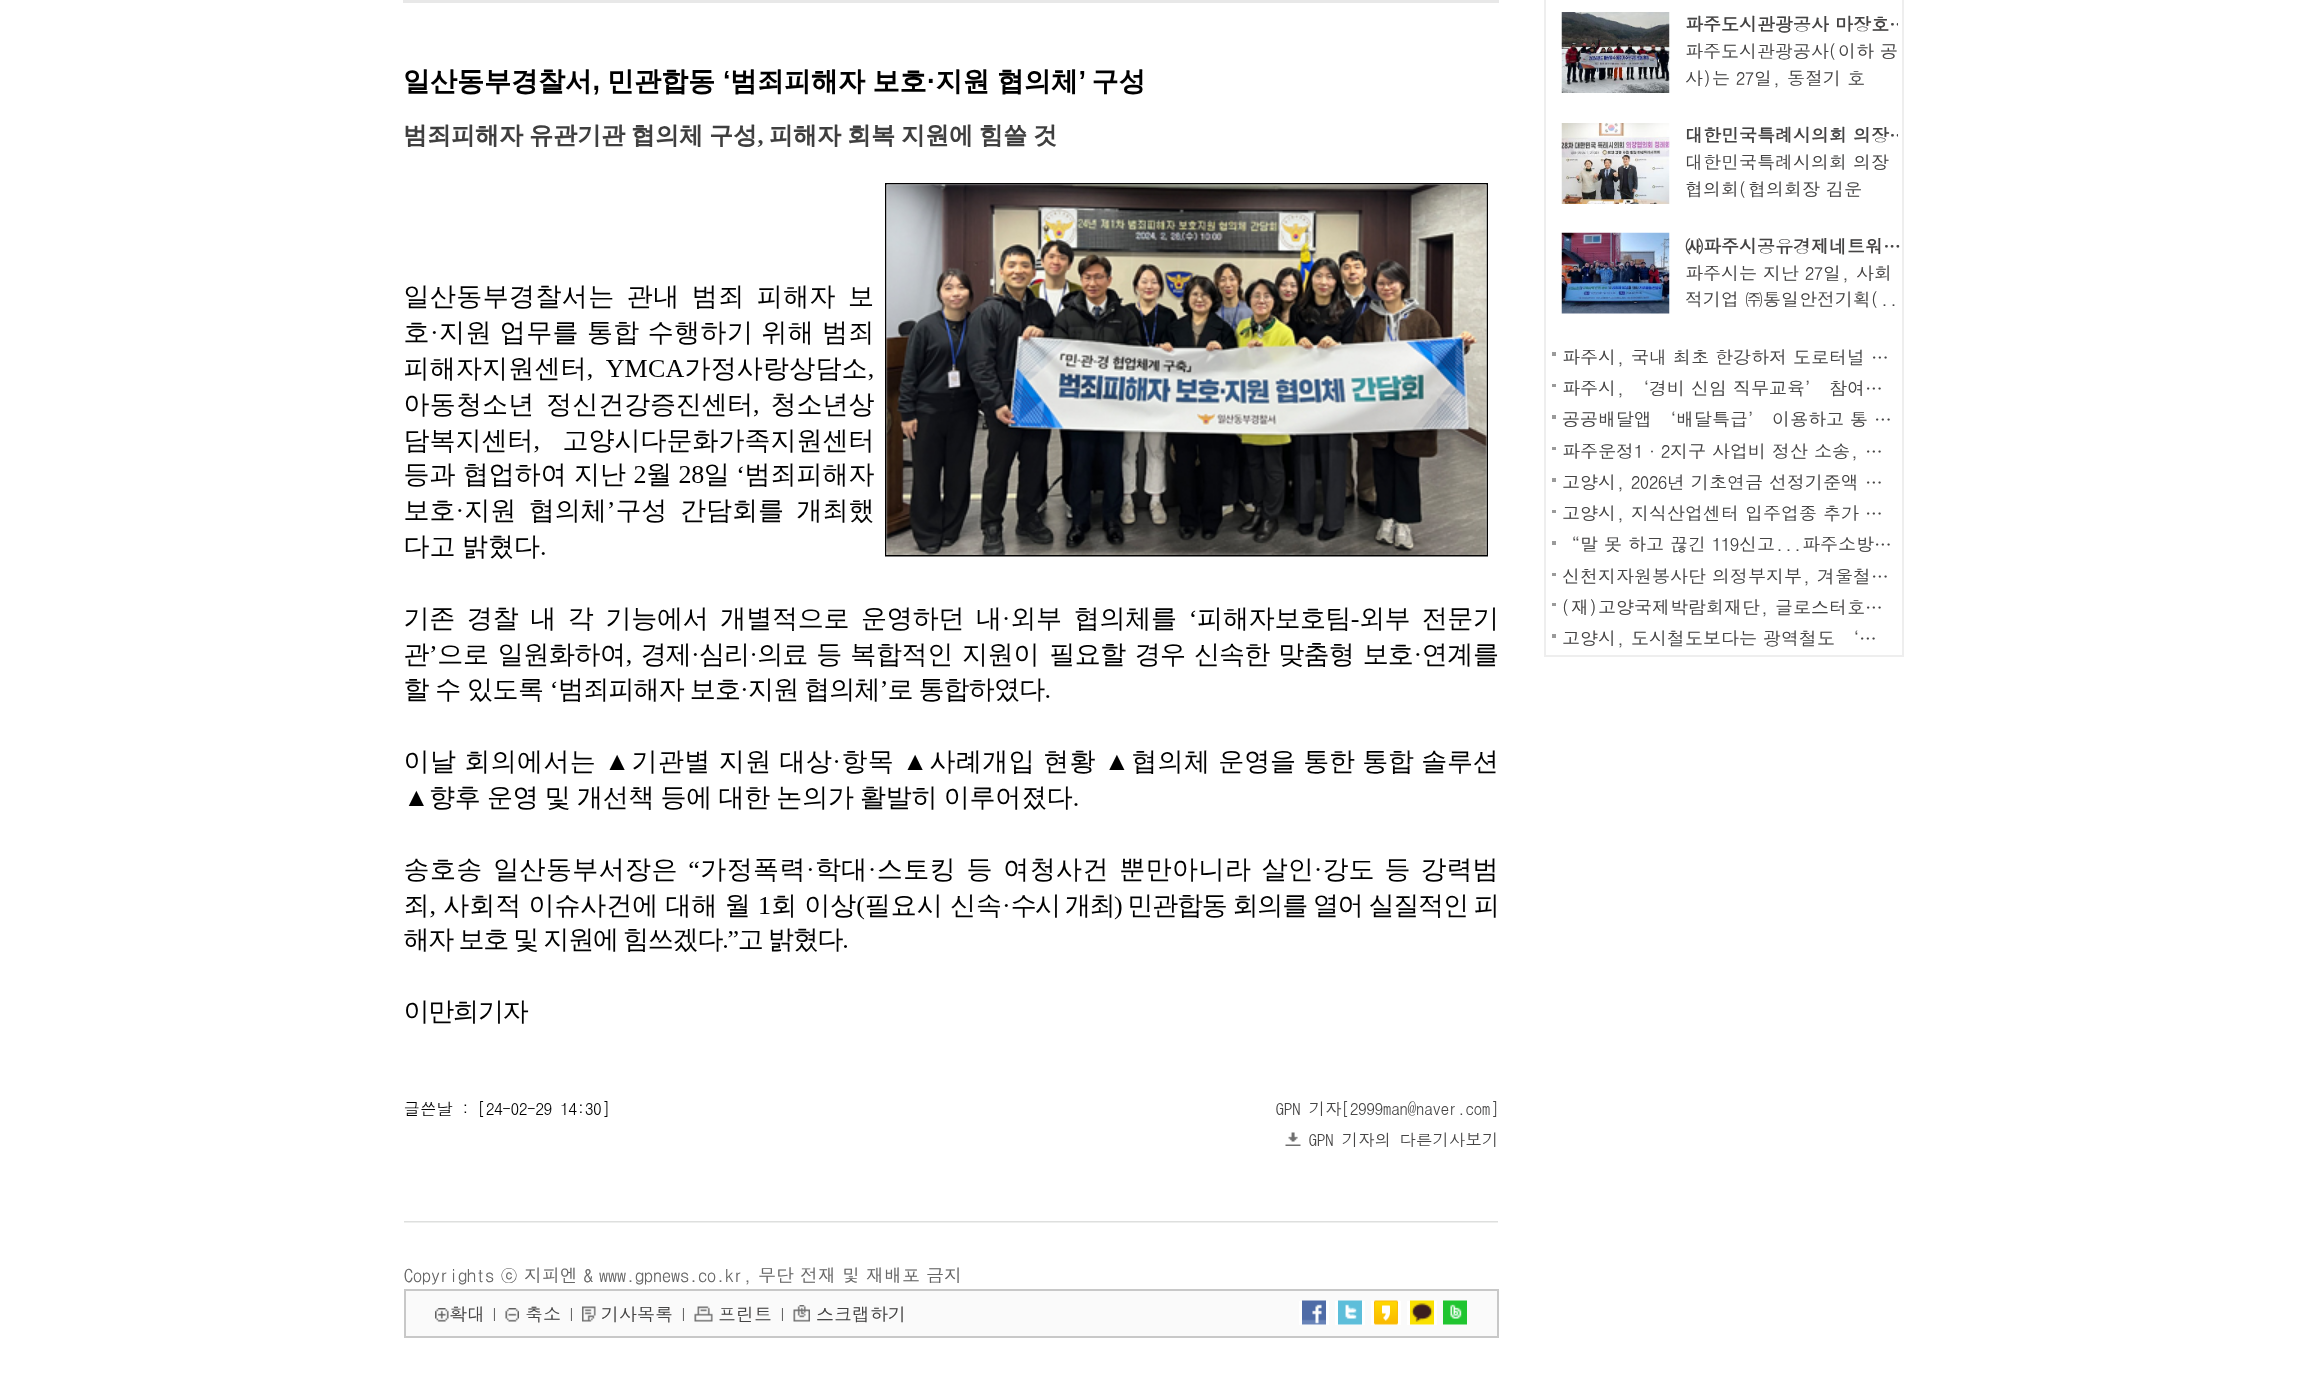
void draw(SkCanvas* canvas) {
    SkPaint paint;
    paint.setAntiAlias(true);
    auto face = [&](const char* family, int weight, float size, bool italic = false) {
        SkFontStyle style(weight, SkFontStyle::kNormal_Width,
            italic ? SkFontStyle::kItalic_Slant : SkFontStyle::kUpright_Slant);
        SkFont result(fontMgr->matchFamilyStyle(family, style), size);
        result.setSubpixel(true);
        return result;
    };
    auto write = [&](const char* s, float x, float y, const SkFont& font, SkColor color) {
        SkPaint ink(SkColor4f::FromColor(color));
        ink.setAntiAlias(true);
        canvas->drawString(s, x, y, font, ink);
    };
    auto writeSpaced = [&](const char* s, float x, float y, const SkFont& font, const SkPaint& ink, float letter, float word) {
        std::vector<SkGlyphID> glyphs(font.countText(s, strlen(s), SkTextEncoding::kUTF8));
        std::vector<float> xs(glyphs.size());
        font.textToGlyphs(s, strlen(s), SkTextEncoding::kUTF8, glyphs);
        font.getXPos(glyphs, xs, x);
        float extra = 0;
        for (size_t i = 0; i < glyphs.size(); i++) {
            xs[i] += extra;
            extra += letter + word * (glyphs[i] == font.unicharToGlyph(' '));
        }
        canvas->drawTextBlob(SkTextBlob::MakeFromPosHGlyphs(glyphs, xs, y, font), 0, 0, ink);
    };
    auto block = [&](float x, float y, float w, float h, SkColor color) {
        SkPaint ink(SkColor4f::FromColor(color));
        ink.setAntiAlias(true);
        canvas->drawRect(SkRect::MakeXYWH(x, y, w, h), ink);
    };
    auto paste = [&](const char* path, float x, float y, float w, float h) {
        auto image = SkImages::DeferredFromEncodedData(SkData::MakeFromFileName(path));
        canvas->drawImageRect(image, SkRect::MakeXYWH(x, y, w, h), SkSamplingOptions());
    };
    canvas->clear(SK_ColorWHITE);
    paint.setStyle(SkPaint::kStroke_Style);
    paint.setStrokeWidth(2);
    paint.setColor(SkColorSetRGB(238, 238, 238));
    canvas->drawRect(SkRect::MakeXYWH(1545, -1, 358, 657), paint);
    paste("pic1.png", 1561, 12, 109, 81);
    canvas->save();
    canvas->clipRect(SkRect::MakeXYWH(1685, 11, 213, 27));
    auto kFont1 = face("DotumChe", 700, 18);
    paint.setStyle(SkPaint::kFill_Style);
    paint.setColor(SkColorSetRGB(69, 68, 68));
    writeSpaced("파주도시관광공사 마장호…", 1685, 31, kFont1, paint, 0, -3);
    canvas->restore();
    auto kFont2 = face("DotumChe", 400, 18);
    writeSpaced("파주도시관광공사(이하 공", 1685, 58, kFont2, paint, 0, -3);
    writeSpaced("사)는 27일, 동절기 호", 1685, 85, kFont2, paint, 0, -3);
    paste("pic2.png", 1561, 123, 109, 81);
    canvas->save();
    canvas->clipRect(SkRect::MakeXYWH(1685, 122, 213, 27));
    writeSpaced("대한민국특례시의회 의장…", 1685, 142, kFont1, paint, 0, -3);
    canvas->restore();
    writeSpaced("대한민국특례시의회 의장", 1685, 169, kFont2, paint, 0, -3);
    writeSpaced("협의회(협의회장 김운", 1685, 196, kFont2, paint, 0, -3);
    paste("pic3.png", 1561, 232, 109, 82);
    writeSpaced("㈔파주시공유경제네트워…", 1685, 253, kFont1, paint, 0, -3);
    writeSpaced("파주시는 지난 27일, 사회", 1685, 280, kFont2, paint, 0, -3);
    writeSpaced("적기업 ㈜통일안전기획(..", 1685, 306, kFont2, paint, 0, -3);
    block(1552, 352, 4, 4, SkColorSetRGB(154, 154, 154));
    writeSpaced("파주시, 국내 최초 한강하저 도로터널 …", 1562, 364, kFont2, paint, 0, -3);
    block(1552, 384, 4, 3, SkColorSetRGB(154, 154, 154));
    writeSpaced("파주시, ‘경비 신임 직무교육’ 참여…", 1562, 395, kFont2, paint, 0, -3);
    block(1552, 415, 4, 4, SkColorSetRGB(154, 154, 154));
    writeSpaced("공공배달앱 ‘배달특급’ 이용하고 통 …", 1562, 426, kFont2, paint, 0, -3);
    block(1552, 447, 4, 3, SkColorSetRGB(154, 154, 154));
    writeSpaced("파주운정1·2지구 사업비 정산 소송, …", 1562, 458, kFont2, paint, 0, -3);
    block(1552, 478, 4, 4, SkColorSetRGB(154, 154, 154));
    writeSpaced("고양시, 2026년 기초연금 선정기준액 …", 1562, 489, kFont2, paint, 0, -3);
    block(1552, 510, 4, 3, SkColorSetRGB(154, 154, 154));
    writeSpaced("고양시, 지식산업센터 입주업종 추가 …", 1562, 520, kFont2, paint, 0, -3);
    block(1552, 541, 4, 4, SkColorSetRGB(154, 154, 154));
    writeSpaced("“말 못 하고 끊긴 119신고...파주소방…", 1562, 551, kFont2, paint, 0, -3);
    block(1552, 573, 4, 3, SkColorSetRGB(154, 154, 154));
    writeSpaced("신천지자원봉사단 의정부지부, 겨울철…", 1562, 583, kFont2, paint, 0, -3);
    block(1552, 603, 4, 3, SkColorSetRGB(154, 154, 154));
    writeSpaced("(재)고양국제박람회재단, 글로스터호…", 1562, 614, kFont2, paint, 0, -3);
    block(1552, 634, 4, 4, SkColorSetRGB(154, 154, 154));
    writeSpaced("고양시, 도시철도보다는 광역철도 ‘…", 1562, 645, kFont2, paint, 0, -3);
    block(403, 0, 1096, 3, SkColorSetRGB(232, 232, 232));
    paste("pic4.png", 404, 69, 1094, 1154);
    paint.setColor(SkColorSetRGB(102, 102, 102));
    writeSpaced("Copyrights ⓒ 지피엔 & www.gpnews.co.kr, 무단 전재 및 재배포 금지", 404, 1282, kFont2, paint, 0, -3);
    paint.setColor(SkColorSetRGB(250, 250, 250));
    canvas->drawRect(SkRect::MakeXYWH(405, 1290, 1093, 47), paint);
    paint.setStyle(SkPaint::kStroke_Style);
    paint.setColor(SkColorSetRGB(200, 200, 200));
    canvas->drawRect(SkRect::MakeXYWH(405, 1290, 1093, 47), paint);
    paste("pic5.png", 435, 1308, 14, 14);
    write("확대", 449, 1321, kFont2, SkColorSetRGB(69, 68, 68));
    write("l", 490, 1321, kFont2, SkColorSetRGB(102, 102, 102));
    paste("pic6.png", 505, 1308, 14, 14);
    write("축소", 525, 1321, kFont2, SkColorSetRGB(69, 68, 68));
    write("l", 567, 1321, kFont2, SkColorSetRGB(102, 102, 102));
    paste("pic7.png", 582, 1306, 14, 16);
    write("기사목록", 601, 1321, kFont2, SkColorSetRGB(69, 68, 68));
    write("l", 679, 1321, kFont2, SkColorSetRGB(102, 102, 102));
    paste("pic8.png", 694, 1306, 19, 16);
    write("프린트", 718, 1321, kFont2, SkColorSetRGB(69, 68, 68));
    write("l", 778, 1321, kFont2, SkColorSetRGB(102, 102, 102));
    paste("pic9.png", 793, 1305, 17, 17);
    write("스크랩하기", 816, 1321, kFont2, SkColorSetRGB(69, 68, 68));
    block(1299, 1301, 30, 24, SK_ColorWHITE);
    paste("pic10.png", 1302, 1300, 24, 25);
    block(1335, 1301, 30, 24, SK_ColorWHITE);
    paste("pic11.png", 1338, 1300, 24, 25);
    block(1371, 1301, 30, 24, SK_ColorWHITE);
    paste("pic12.png", 1374, 1300, 24, 25);
    block(1407, 1301, 30, 24, SK_ColorWHITE);
    paste("pic13.png", 1410, 1300, 24, 25);
    paste("pic14.png", 1443, 1300, 24, 25);
}
